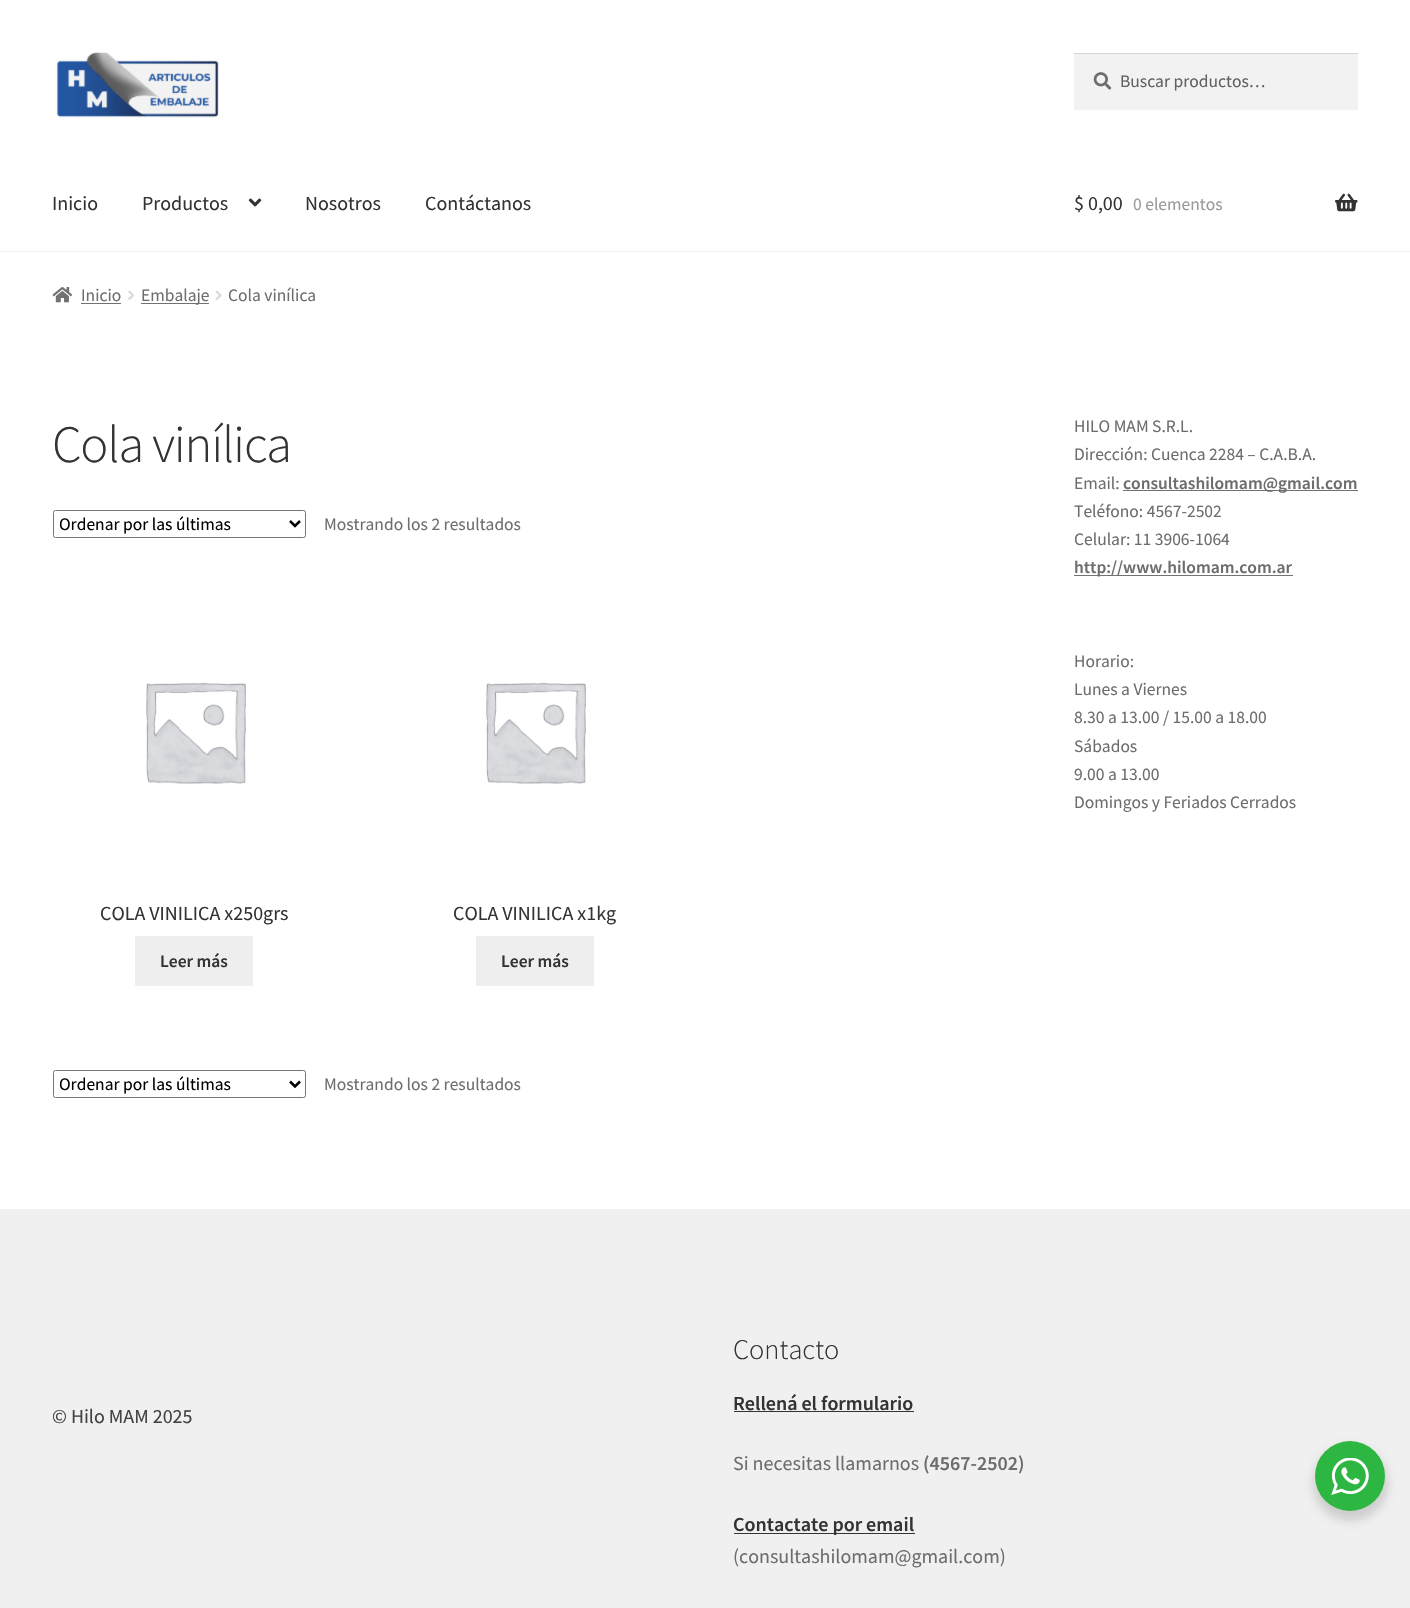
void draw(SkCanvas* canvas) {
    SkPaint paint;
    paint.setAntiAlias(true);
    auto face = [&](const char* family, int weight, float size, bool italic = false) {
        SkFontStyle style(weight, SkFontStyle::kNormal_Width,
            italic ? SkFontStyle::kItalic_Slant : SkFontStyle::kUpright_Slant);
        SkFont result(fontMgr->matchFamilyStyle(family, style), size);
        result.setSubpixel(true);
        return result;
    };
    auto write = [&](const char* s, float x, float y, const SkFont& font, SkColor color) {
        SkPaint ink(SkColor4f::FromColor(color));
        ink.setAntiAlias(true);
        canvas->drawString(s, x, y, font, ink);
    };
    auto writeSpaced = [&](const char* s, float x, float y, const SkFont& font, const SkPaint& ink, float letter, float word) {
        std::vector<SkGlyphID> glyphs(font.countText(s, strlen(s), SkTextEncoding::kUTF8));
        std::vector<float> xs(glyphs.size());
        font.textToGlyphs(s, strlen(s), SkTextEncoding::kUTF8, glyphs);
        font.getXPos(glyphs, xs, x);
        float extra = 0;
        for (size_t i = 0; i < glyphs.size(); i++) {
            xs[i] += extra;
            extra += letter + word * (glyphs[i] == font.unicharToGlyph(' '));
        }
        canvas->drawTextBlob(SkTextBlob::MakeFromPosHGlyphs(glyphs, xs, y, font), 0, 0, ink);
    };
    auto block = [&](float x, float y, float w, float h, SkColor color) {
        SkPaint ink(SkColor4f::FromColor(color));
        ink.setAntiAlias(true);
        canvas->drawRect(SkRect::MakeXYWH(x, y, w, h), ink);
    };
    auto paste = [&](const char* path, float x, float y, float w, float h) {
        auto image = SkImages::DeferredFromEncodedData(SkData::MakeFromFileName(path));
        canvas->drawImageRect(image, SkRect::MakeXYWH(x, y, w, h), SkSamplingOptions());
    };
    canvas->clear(SK_ColorWHITE);
    block(0, 251, 1410, 1, SkColorSetRGB(240, 240, 240));
    paste("pic1.png", 56, 52, 163, 66);
    block(1074, 54, 284, 56, SkColorSetRGB(242, 242, 242));
    paste("pic2.png", 1093, 72, 19, 18);
    block(1074, 53, 284, 1, SkColorSetRGB(212, 212, 212));
    auto kFont1 = face("Source Sans Pro", 400, 17.5f);
    write("Buscar productos…", 1120, 87, kFont1, SkColorSetRGB(97, 97, 97));
    auto kFont2 = face("Source Sans Pro", 400, 20);
    write("Inicio", 52, 210, kFont2, SkColorSetRGB(51, 51, 51));
    write("Productos", 142, 210, kFont2, SkColorSetRGB(51, 51, 51));
    paste("pic3.png", 248, 198, 14, 9);
    write("Nosotros", 305, 210, kFont2, SkColorSetRGB(51, 51, 51));
    write("Contáctanos", 425, 210, kFont2, SkColorSetRGB(51, 51, 51));
    write("$ 0,00", 1074, 210, kFont2, SkColorSetRGB(51, 51, 51));
    write("0 elementos", 1133, 210, kFont1, SkColorSetRGB(153, 153, 153));
    paste("pic4.png", 1335, 193, 23, 19);
    paste("pic5.png", 52, 287, 21, 16);
    write("Inicio", 81, 301, kFont1, SkColorSetRGB(109, 109, 109));
    block(81, 303, 40, 1, SkColorSetRGB(114, 114, 114));
    paste("pic6.png", 128, 290, 7, 10);
    block(141, 303, 68, 1, SkColorSetRGB(114, 114, 114));
    write("Embalaje", 141, 301, kFont1, SkColorSetRGB(109, 109, 109));
    paste("pic7.png", 215, 290, 7, 10);
    write("Cola vinílica", 228, 301, kFont1, SkColorSetRGB(109, 109, 109));
    auto kFont3 = face("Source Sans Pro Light", 300, 52.5f);
    paint.setColor(SkColorSetRGB(51, 51, 51));
    writeSpaced("Cola vinílica", 52, 462, kFont3, paint, -1.25f, 0);
    paint.setStyle(SkPaint::kStroke_Style);
    paint.setStrokeWidth(1);
    paint.setColor(SkColorSetRGB(118, 118, 118));
    canvas->drawRoundRect(SkRect::MakeXYWH(53.5f, 510.5f, 252, 27), 2, 2, paint);
    paint.setStrokeWidth(2.5f);
    paint.setColor(SK_ColorBLACK);
    canvas->drawPath(SkPathBuilder().moveTo(290, 521).lineTo(295, 526).lineTo(300, 521).detach(), paint);
    write("Ordenar por las últimas", 59, 530, kFont1, SK_ColorBLACK);
    write("Mostrando los 2 resultados", 324, 530, kFont1, SkColorSetRGB(109, 109, 109));
    paste("pic8.png", 146, 682, 100, 102);
    write("COLA VINILICA x250grs", 100, 920, kFont2, SkColorSetRGB(51, 51, 51));
    block(135, 936, 118, 50, SkColorSetRGB(238, 238, 238));
    auto kFont4 = face("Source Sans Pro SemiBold", 600, 17.5f);
    write("Leer más", 160, 967, kFont4, SkColorSetRGB(51, 51, 51));
    paste("pic8.png", 486, 682, 100, 102);
    write("COLA VINILICA x1kg", 453, 920, kFont2, SkColorSetRGB(51, 51, 51));
    block(476, 936, 118, 50, SkColorSetRGB(238, 238, 238));
    write("Leer más", 501, 967, kFont4, SkColorSetRGB(51, 51, 51));
    paint.setStrokeWidth(1);
    paint.setColor(SkColorSetRGB(118, 118, 118));
    canvas->drawRoundRect(SkRect::MakeXYWH(53.5f, 1070.5f, 252, 27), 2, 2, paint);
    paint.setStrokeWidth(2.5f);
    paint.setColor(SK_ColorBLACK);
    canvas->drawPath(SkPathBuilder().moveTo(290, 1081.5f).lineTo(295, 1086.5f).lineTo(300, 1081.5f).detach(), paint);
    write("Ordenar por las últimas", 59, 1090, kFont1, SK_ColorBLACK);
    write("Mostrando los 2 resultados", 324, 1090, kFont1, SkColorSetRGB(109, 109, 109));
    write("HILO MAM S.R.L.", 1074, 432, kFont1, SkColorSetRGB(109, 109, 109));
    write("Dirección: Cuenca 2284 – C.A.B.A.", 1074, 460, kFont1, SkColorSetRGB(109, 109, 109));
    write("Email:", 1074, 489, kFont1, SkColorSetRGB(109, 109, 109));
    block(1123, 490, 235, 1, SkColorSetRGB(114, 114, 114));
    write("consultashilomam@gmail.com", 1123, 489, kFont4, SkColorSetRGB(109, 109, 109));
    write("Teléfono: 4567-2502", 1074, 517, kFont1, SkColorSetRGB(109, 109, 109));
    write("Celular: 11 3906-1064", 1074, 545, kFont1, SkColorSetRGB(109, 109, 109));
    block(1074, 575, 219, 1, SkColorSetRGB(114, 114, 114));
    write("http://www.hilomam.com.ar", 1074, 573, kFont4, SkColorSetRGB(109, 109, 109));
    write("Horario:", 1074, 667, kFont1, SkColorSetRGB(109, 109, 109));
    write("Lunes a Viernes", 1074, 695, kFont1, SkColorSetRGB(109, 109, 109));
    write("8.30 a 13.00 / 15.00 a 18.00", 1074, 723, kFont1, SkColorSetRGB(109, 109, 109));
    write("Sábados", 1074, 752, kFont1, SkColorSetRGB(109, 109, 109));
    write("9.00 a 13.00", 1074, 780, kFont1, SkColorSetRGB(109, 109, 109));
    write("Domingos y Feriados Cerrados", 1074, 808, kFont1, SkColorSetRGB(109, 109, 109));
    block(0, 1209, 1410, 399, SkColorSetRGB(240, 240, 240));
    write("© Hilo MAM 2025", 52, 1423, kFont2, SkColorSetRGB(66, 66, 66));
    auto kFont5 = face("Source Sans Pro Light", 300, 28.5f);
    write("Contacto", 733, 1359, kFont5, SkColorSetRGB(51, 51, 51));
    auto kFont6 = face("Source Sans Pro SemiBold", 600, 20);
    write("Rellená el formulario", 733, 1410, kFont6, SkColorSetRGB(51, 51, 51));
    block(734, 1411, 180, 1, SkColorSetRGB(51, 51, 51));
    write("Si necesitas llamarnos", 733, 1470, kFont2, SkColorSetRGB(109, 109, 109));
    write("(4567-2502)", 923, 1470, kFont6, SkColorSetRGB(109, 109, 109));
    block(734, 1533, 181, 1, SkColorSetRGB(51, 51, 51));
    write("Contactate por email", 733, 1531, kFont6, SkColorSetRGB(51, 51, 51));
    write("(consultashilomam@gmail.com)", 733, 1563, kFont2, SkColorSetRGB(109, 109, 109));
    paint.setStyle(SkPaint::kFill_Style);
    paint.setColor(SkColorSetARGB(36, 0, 0, 0));
    paint.setMaskFilter(SkMaskFilter::MakeBlur(kNormal_SkBlurStyle, 5));
    canvas->drawRoundRect(SkRect::MakeXYWH(1313, 1446, 75, 75), 37.5f, 37.5f, paint);
    paint.setMaskFilter(nullptr);
    paint.setColor(SkColorSetRGB(45, 183, 66));
    canvas->drawCircle(1350, 1476, 35, paint);
    paste("pic9.png", 1331, 1458, 38, 37);
}
